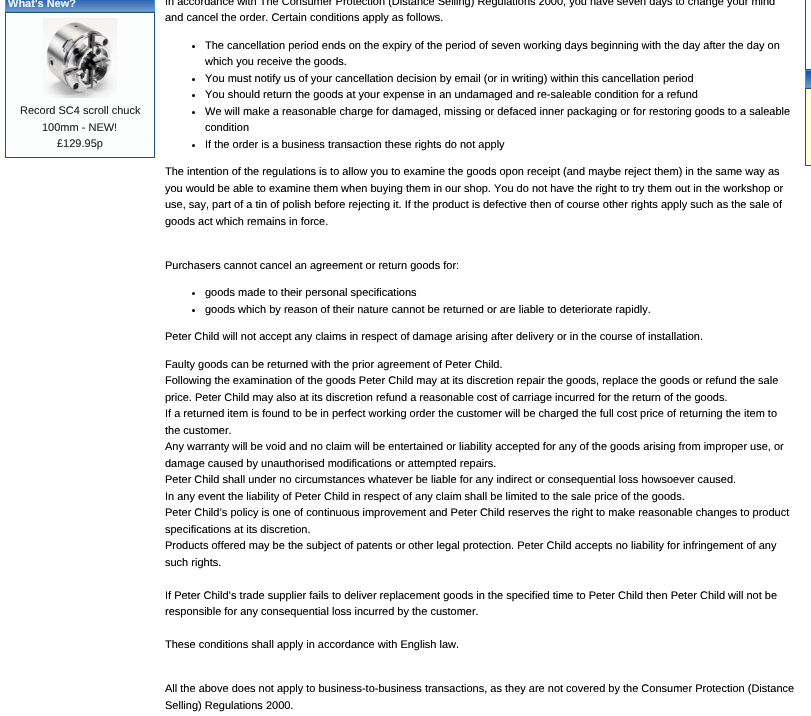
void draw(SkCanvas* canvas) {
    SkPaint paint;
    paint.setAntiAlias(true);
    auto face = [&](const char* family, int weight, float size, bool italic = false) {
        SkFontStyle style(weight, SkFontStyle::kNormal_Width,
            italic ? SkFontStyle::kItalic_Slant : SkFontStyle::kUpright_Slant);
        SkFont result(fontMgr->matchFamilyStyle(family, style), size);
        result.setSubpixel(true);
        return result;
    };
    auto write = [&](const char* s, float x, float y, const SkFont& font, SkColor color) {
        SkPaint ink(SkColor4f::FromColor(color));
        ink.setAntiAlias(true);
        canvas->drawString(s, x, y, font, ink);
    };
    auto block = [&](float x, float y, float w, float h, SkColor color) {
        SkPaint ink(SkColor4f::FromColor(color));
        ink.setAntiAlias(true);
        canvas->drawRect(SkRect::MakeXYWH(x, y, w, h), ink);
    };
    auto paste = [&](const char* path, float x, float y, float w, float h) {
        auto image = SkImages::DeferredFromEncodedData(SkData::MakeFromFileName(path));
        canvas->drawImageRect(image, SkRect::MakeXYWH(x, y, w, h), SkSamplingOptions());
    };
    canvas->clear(SK_ColorWHITE);
    paste("pic1.png", 6, 0, 148, 11);
    paint.setStyle(SkPaint::kStroke_Style);
    paint.setStrokeWidth(1);
    paint.setColor(SkColorSetRGB(66, 151, 215));
    canvas->drawRect(SkRect::MakeXYWH(5.5f, -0.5f, 149, 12), paint);
    auto kFont1 = face("Liberation Sans", 700, 11);
    write("What's New?", 8, 7, kFont1, SkColorSetRGB(234, 245, 247));
    paint.setStyle(SkPaint::kFill_Style);
    paint.setColor(SkColorSetRGB(252, 253, 253));
    canvas->drawRect(SkRect::MakeXYWH(5.5f, 12.5f, 149, 145), paint);
    paint.setStyle(SkPaint::kStroke_Style);
    paint.setColor(SkColorSetRGB(23, 85, 130));
    canvas->drawRect(SkRect::MakeXYWH(5.5f, 12.5f, 149, 145), paint);
    paste("pic2.png", 43, 18, 74, 80);
    auto kFont2 = face("Liberation Sans", 400, 11);
    write("Record SC4 scroll chuck", 20, 114, kFont2, SkColorSetRGB(34, 34, 34));
    write("100mm - NEW!", 42, 131, kFont2, SkColorSetRGB(34, 34, 34));
    write("£129.95p", 57, 147, kFont2, SkColorSetRGB(34, 34, 34));
    write("In accordance with The Consumer Protection (Distance Selling) Regulations 2000, you have seven days to change your mind", 165, 5, kFont2, SK_ColorBLACK);
    write("and cancel the order. Certain conditions apply as follows.", 165, 21, kFont2, SK_ColorBLACK);
    paint.setStyle(SkPaint::kFill_Style);
    paint.setColor(SK_ColorBLACK);
    canvas->drawCircle(193.5f, 46.5f, 1.5f, paint);
    write("The cancellation period ends on the expiry of the period of seven working days beginning with the day after the day on", 205, 49, kFont2, SK_ColorBLACK);
    write("which you receive the goods.", 205, 65, kFont2, SK_ColorBLACK);
    canvas->drawCircle(193.5f, 79.5f, 1.5f, paint);
    write("You must notify us of your cancellation decision by email (or in writing) within this cancellation period", 205, 82, kFont2, SK_ColorBLACK);
    canvas->drawCircle(193.5f, 95.5f, 1.5f, paint);
    write("You should return the goods at your expense in an undamaged and re-saleable condition for a refund", 205, 98, kFont2, SK_ColorBLACK);
    canvas->drawCircle(193.5f, 112.5f, 1.5f, paint);
    write("We will make a reasonable charge for damaged, missing or defaced inner packaging or for restoring goods to a saleable", 205, 115, kFont2, SK_ColorBLACK);
    write("condition", 205, 131, kFont2, SK_ColorBLACK);
    canvas->drawCircle(193.5f, 145.5f, 1.5f, paint);
    write("If the order is a business transaction these rights do not apply", 205, 148, kFont2, SK_ColorBLACK);
    write("The intention of the regulations is to allow you to examine the goods opon receipt (and maybe reject them) in the same way as", 165, 175, kFont2, SK_ColorBLACK);
    write("you would be able to examine them when buying them in our shop. You do not have the right to try them out in the workshop or", 165, 192, kFont2, SK_ColorBLACK);
    write("use, say, part of a tin of polish before rejecting it. If the product is defective then of course other rights apply such as the sale of", 165, 208, kFont2, SK_ColorBLACK);
    write("goods act which remains in force.", 165, 225, kFont2, SK_ColorBLACK);
    write("Purchasers cannot cancel an agreement or return goods for:", 165, 269, kFont2, SK_ColorBLACK);
    canvas->drawCircle(193.5f, 293.5f, 1.5f, paint);
    write("goods made to their personal specifications", 205, 296, kFont2, SK_ColorBLACK);
    canvas->drawCircle(193.5f, 310.5f, 1.5f, paint);
    write("goods which by reason of their nature cannot be returned or are liable to deteriorate rapidly.", 205, 313, kFont2, SK_ColorBLACK);
    write("Peter Child will not accept any claims in respect of damage arising after delivery or in the course of installation.", 165, 340, kFont2, SK_ColorBLACK);
    write("Faulty goods can be returned with the prior agreement of Peter Child.", 165, 368, kFont2, SK_ColorBLACK);
    write("Following the examination of the goods Peter Child may at its discretion repair the goods, replace the goods or refund the sale", 165, 384, kFont2, SK_ColorBLACK);
    write("price. Peter Child may also at its discretion refund a reasonable cost of carriage incurred for the return of the goods.", 165, 401, kFont2, SK_ColorBLACK);
    write("If a returned item is found to be in perfect working order the customer will be charged the full cost price of returning the item to", 165, 417, kFont2, SK_ColorBLACK);
    write("the customer.", 165, 434, kFont2, SK_ColorBLACK);
    write("Any warranty will be void and no claim will be entertained or liability accepted for any of the goods arising from improper use, or", 165, 450, kFont2, SK_ColorBLACK);
    write("damage caused by unauthorised modifications or attempted repairs.", 165, 467, kFont2, SK_ColorBLACK);
    write("Peter Child shall under no circumstances whatever be liable for any indirect or consequential loss howsoever caused.", 165, 483, kFont2, SK_ColorBLACK);
    write("In any event the liability of Peter Child in respect of any claim shall be limited to the sale price of the goods.", 165, 500, kFont2, SK_ColorBLACK);
    write("Peter Child’s policy is one of continuous improvement and Peter Child reserves the right to make reasonable changes to product", 165, 516, kFont2, SK_ColorBLACK);
    write("specifications at its discretion.", 165, 533, kFont2, SK_ColorBLACK);
    write("Products offered may be the subject of patents or other legal protection. Peter Child accepts no liability for infringement of any", 165, 549, kFont2, SK_ColorBLACK);
    write("such rights.", 165, 566, kFont2, SK_ColorBLACK);
    write("If Peter Child’s trade supplier fails to deliver replacement goods in the specified time to Peter Child then Peter Child will not be", 165, 599, kFont2, SK_ColorBLACK);
    write("responsible for any consequential loss incurred by the customer.", 165, 615, kFont2, SK_ColorBLACK);
    write("These conditions shall apply in accordance with English law.", 165, 648, kFont2, SK_ColorBLACK);
    write("All the above does not apply to business-to-business transactions, as they are not covered by the Consumer Protection (Distance", 165, 692, kFont2, SK_ColorBLACK);
    write("Selling) Regulations 2000.", 165, 709, kFont2, SK_ColorBLACK);
    paint.setColor(SkColorSetRGB(252, 253, 253));
    canvas->drawRect(SkRect::MakeXYWH(805.5f, -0.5f, 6, 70), paint);
    paint.setStyle(SkPaint::kStroke_Style);
    paint.setColor(SkColorSetRGB(23, 85, 130));
    canvas->drawRect(SkRect::MakeXYWH(805.5f, -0.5f, 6, 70), paint);
    block(806, 70, 5, 2, SkColorSetRGB(20, 85, 173));
    paste("pic3.png", 806, 72, 5, 15);
    paint.setColor(SkColorSetRGB(66, 151, 215));
    canvas->drawRect(SkRect::MakeXYWH(805.5f, 70.5f, 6, 17), paint);
    paint.setStyle(SkPaint::kFill_Style);
    paint.setColor(SkColorSetRGB(255, 255, 221));
    canvas->drawRect(SkRect::MakeXYWH(805.5f, 88.5f, 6, 77), paint);
    paint.setStyle(SkPaint::kStroke_Style);
    paint.setColor(SkColorSetRGB(23, 85, 130));
    canvas->drawRect(SkRect::MakeXYWH(805.5f, 88.5f, 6, 77), paint);
}
